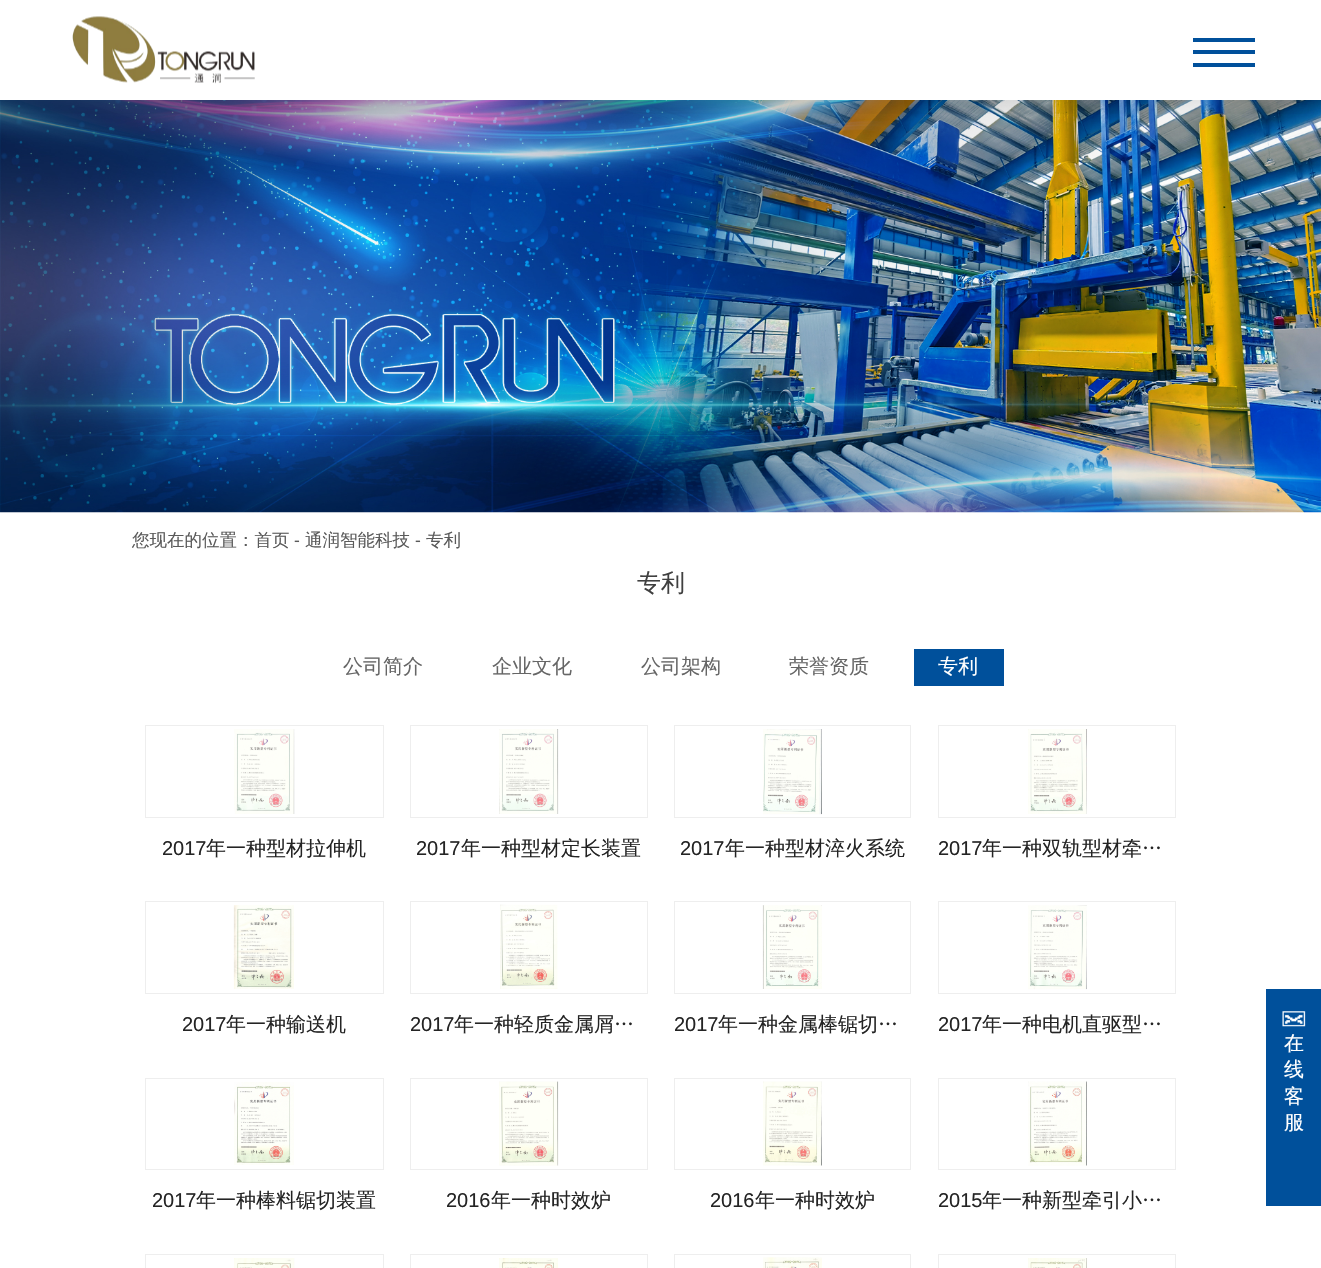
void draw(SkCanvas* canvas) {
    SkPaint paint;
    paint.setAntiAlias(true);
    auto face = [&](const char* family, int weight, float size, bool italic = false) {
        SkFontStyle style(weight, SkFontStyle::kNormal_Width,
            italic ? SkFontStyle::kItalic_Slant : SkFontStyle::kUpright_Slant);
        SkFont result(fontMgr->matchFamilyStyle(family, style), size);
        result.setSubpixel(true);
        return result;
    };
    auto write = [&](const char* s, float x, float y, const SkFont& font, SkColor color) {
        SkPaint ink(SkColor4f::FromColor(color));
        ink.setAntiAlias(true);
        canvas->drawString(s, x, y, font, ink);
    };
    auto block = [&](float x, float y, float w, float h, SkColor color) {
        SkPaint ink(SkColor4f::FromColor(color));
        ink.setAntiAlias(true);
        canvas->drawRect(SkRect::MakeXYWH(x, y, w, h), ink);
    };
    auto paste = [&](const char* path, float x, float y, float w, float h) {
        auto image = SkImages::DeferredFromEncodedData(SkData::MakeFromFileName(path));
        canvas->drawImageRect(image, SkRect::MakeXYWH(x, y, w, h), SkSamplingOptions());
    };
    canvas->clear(SK_ColorWHITE);
    paste("pic2.png", 0, 100, 1321, 413);
    canvas->save();
    canvas->clipRect(SkRect::MakeXYWH(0, 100, 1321, 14));
    paint.setColor(SkColorSetARGB(26, 0, 0, 0));
    paint.setMaskFilter(SkMaskFilter::MakeBlur(kNormal_SkBlurStyle, 12.5f));
    canvas->drawRect(SkRect::MakeXYWH(0, 3, 1321, 100), paint);
    paint.setMaskFilter(nullptr);
    canvas->restore();
    paste("pic1.png", 72, 16, 183, 68);
    block(1193, 38, 62, 4, SkColorSetRGB(0, 80, 155));
    block(1193, 50, 62, 4, SkColorSetRGB(0, 80, 155));
    block(1193, 63, 62, 4, SkColorSetRGB(0, 80, 155));
    auto kFont1 = face("WenQuanYi Zen Hei", 500, 17.5f);
    write("您现在的位置：首页", 132, 546, kFont1, SkColorSetRGB(90, 90, 90));
    auto kFont2 = face("Liberation Sans", 400, 17.5f);
    write("-", 294, 546, kFont2, SkColorSetRGB(90, 90, 90));
    write("通润智能科技", 305, 546, kFont1, SkColorSetRGB(90, 90, 90));
    write("-", 415, 546, kFont2, SkColorSetRGB(90, 90, 90));
    write("专利", 426, 546, kFont1, SkColorSetRGB(90, 90, 90));
    auto kFont3 = face("WenQuanYi Zen Hei", 500, 24);
    write("专利", 637, 591, kFont3, SkColorSetRGB(64, 64, 64));
    auto kFont4 = face("WenQuanYi Zen Hei", 500, 20);
    write("公司简介", 343, 673, kFont4, SkColorSetRGB(102, 102, 102));
    write("企业文化", 492, 673, kFont4, SkColorSetRGB(102, 102, 102));
    write("公司架构", 641, 673, kFont4, SkColorSetRGB(102, 102, 102));
    write("荣誉资质", 789, 673, kFont4, SkColorSetRGB(102, 102, 102));
    block(914, 649, 90, 37, SkColorSetRGB(0, 80, 155));
    write("专利", 938, 673, kFont4, SK_ColorWHITE);
    paint.setStyle(SkPaint::kStroke_Style);
    paint.setStrokeWidth(1);
    paint.setColor(SkColorSetRGB(238, 238, 238));
    canvas->drawRect(SkRect::MakeXYWH(145.5f, 725.5f, 238, 92), paint);
    paste("pic3.png", 234, 729, 61, 85);
    auto kFont5 = face("Liberation Sans", 400, 20);
    write("2017", 162, 855, kFont5, SkColorSetRGB(36, 36, 36));
    write("年一种型材拉伸机", 206, 855, kFont4, SkColorSetRGB(36, 36, 36));
    canvas->drawRect(SkRect::MakeXYWH(410.5f, 725.5f, 237, 92), paint);
    paste("pic4.png", 499, 729, 60, 85);
    write("2017", 416, 855, kFont5, SkColorSetRGB(36, 36, 36));
    write("年一种型材定长装置", 461, 855, kFont4, SkColorSetRGB(36, 36, 36));
    canvas->drawRect(SkRect::MakeXYWH(674.5f, 725.5f, 236, 92), paint);
    paste("pic5.png", 763, 729, 59, 86);
    write("2017", 680, 855, kFont5, SkColorSetRGB(36, 36, 36));
    write("年一种型材淬火系统", 725, 855, kFont4, SkColorSetRGB(36, 36, 36));
    canvas->drawRect(SkRect::MakeXYWH(938.5f, 725.5f, 237, 92), paint);
    paste("pic6.png", 1028, 729, 59, 85);
    write("2017", 938, 855, kFont5, SkColorSetRGB(36, 36, 36));
    write("年一种双轨型材牵…", 982, 855, kFont4, SkColorSetRGB(36, 36, 36));
    canvas->drawRect(SkRect::MakeXYWH(145.5f, 901.5f, 238, 92), paint);
    paste("pic7.png", 233, 905, 61, 84);
    write("2017", 182, 1031, kFont5, SkColorSetRGB(36, 36, 36));
    write("年一种输送机", 226, 1031, kFont4, SkColorSetRGB(36, 36, 36));
    canvas->drawRect(SkRect::MakeXYWH(410.5f, 901.5f, 237, 92), paint);
    paste("pic8.png", 500, 904, 58, 85);
    write("2017", 410, 1031, kFont5, SkColorSetRGB(36, 36, 36));
    write("年一种轻质金属屑…", 454, 1031, kFont4, SkColorSetRGB(36, 36, 36));
    canvas->drawRect(SkRect::MakeXYWH(674.5f, 901.5f, 236, 92), paint);
    paste("pic9.png", 762, 905, 60, 84);
    write("2017", 674, 1031, kFont5, SkColorSetRGB(36, 36, 36));
    write("年一种金属棒锯切…", 718, 1031, kFont4, SkColorSetRGB(36, 36, 36));
    canvas->drawRect(SkRect::MakeXYWH(938.5f, 901.5f, 237, 92), paint);
    paste("pic10.png", 1028, 905, 59, 85);
    write("2017", 938, 1031, kFont5, SkColorSetRGB(36, 36, 36));
    write("年一种电机直驱型…", 982, 1031, kFont4, SkColorSetRGB(36, 36, 36));
    canvas->drawRect(SkRect::MakeXYWH(145.5f, 1078.5f, 238, 91), paint);
    paste("pic11.png", 234, 1082, 60, 83);
    write("2017", 152, 1207, kFont5, SkColorSetRGB(36, 36, 36));
    write("年一种棒料锯切装置", 196, 1207, kFont4, SkColorSetRGB(36, 36, 36));
    canvas->drawRect(SkRect::MakeXYWH(410.5f, 1078.5f, 237, 91), paint);
    paste("pic12.png", 499, 1081, 60, 85);
    write("2016", 446, 1207, kFont5, SkColorSetRGB(36, 36, 36));
    write("年一种时效炉", 491, 1207, kFont4, SkColorSetRGB(36, 36, 36));
    canvas->drawRect(SkRect::MakeXYWH(674.5f, 1078.5f, 236, 91), paint);
    paste("pic13.png", 763, 1081, 59, 85);
    write("2016", 710, 1207, kFont5, SkColorSetRGB(36, 36, 36));
    write("年一种时效炉", 755, 1207, kFont4, SkColorSetRGB(36, 36, 36));
    canvas->drawRect(SkRect::MakeXYWH(938.5f, 1078.5f, 237, 91), paint);
    paste("pic14.png", 1028, 1081, 59, 85);
    write("2015", 938, 1207, kFont5, SkColorSetRGB(36, 36, 36));
    write("年一种新型牵引小…", 982, 1207, kFont4, SkColorSetRGB(36, 36, 36));
    canvas->drawRect(SkRect::MakeXYWH(145.5f, 1254.5f, 238, 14), paint);
    paste("pic15.png", 234, 1258, 61, 10);
    canvas->drawRect(SkRect::MakeXYWH(410.5f, 1254.5f, 237, 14), paint);
    paste("pic16.png", 499, 1258, 59, 10);
    canvas->drawRect(SkRect::MakeXYWH(674.5f, 1254.5f, 236, 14), paint);
    paste("pic17.png", 763, 1257, 59, 11);
    canvas->drawRect(SkRect::MakeXYWH(938.5f, 1254.5f, 237, 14), paint);
    paste("pic18.png", 1028, 1258, 59, 10);
    block(1266, 989, 55, 217, SkColorSetRGB(0, 80, 155));
    paste("pic19.png", 1282, 1011, 24, 16);
    write("在", 1284, 1050, kFont4, SK_ColorWHITE);
    write("线", 1284, 1076, kFont4, SK_ColorWHITE);
    write("客", 1284, 1103, kFont4, SK_ColorWHITE);
    write("服", 1284, 1129, kFont4, SK_ColorWHITE);
}
